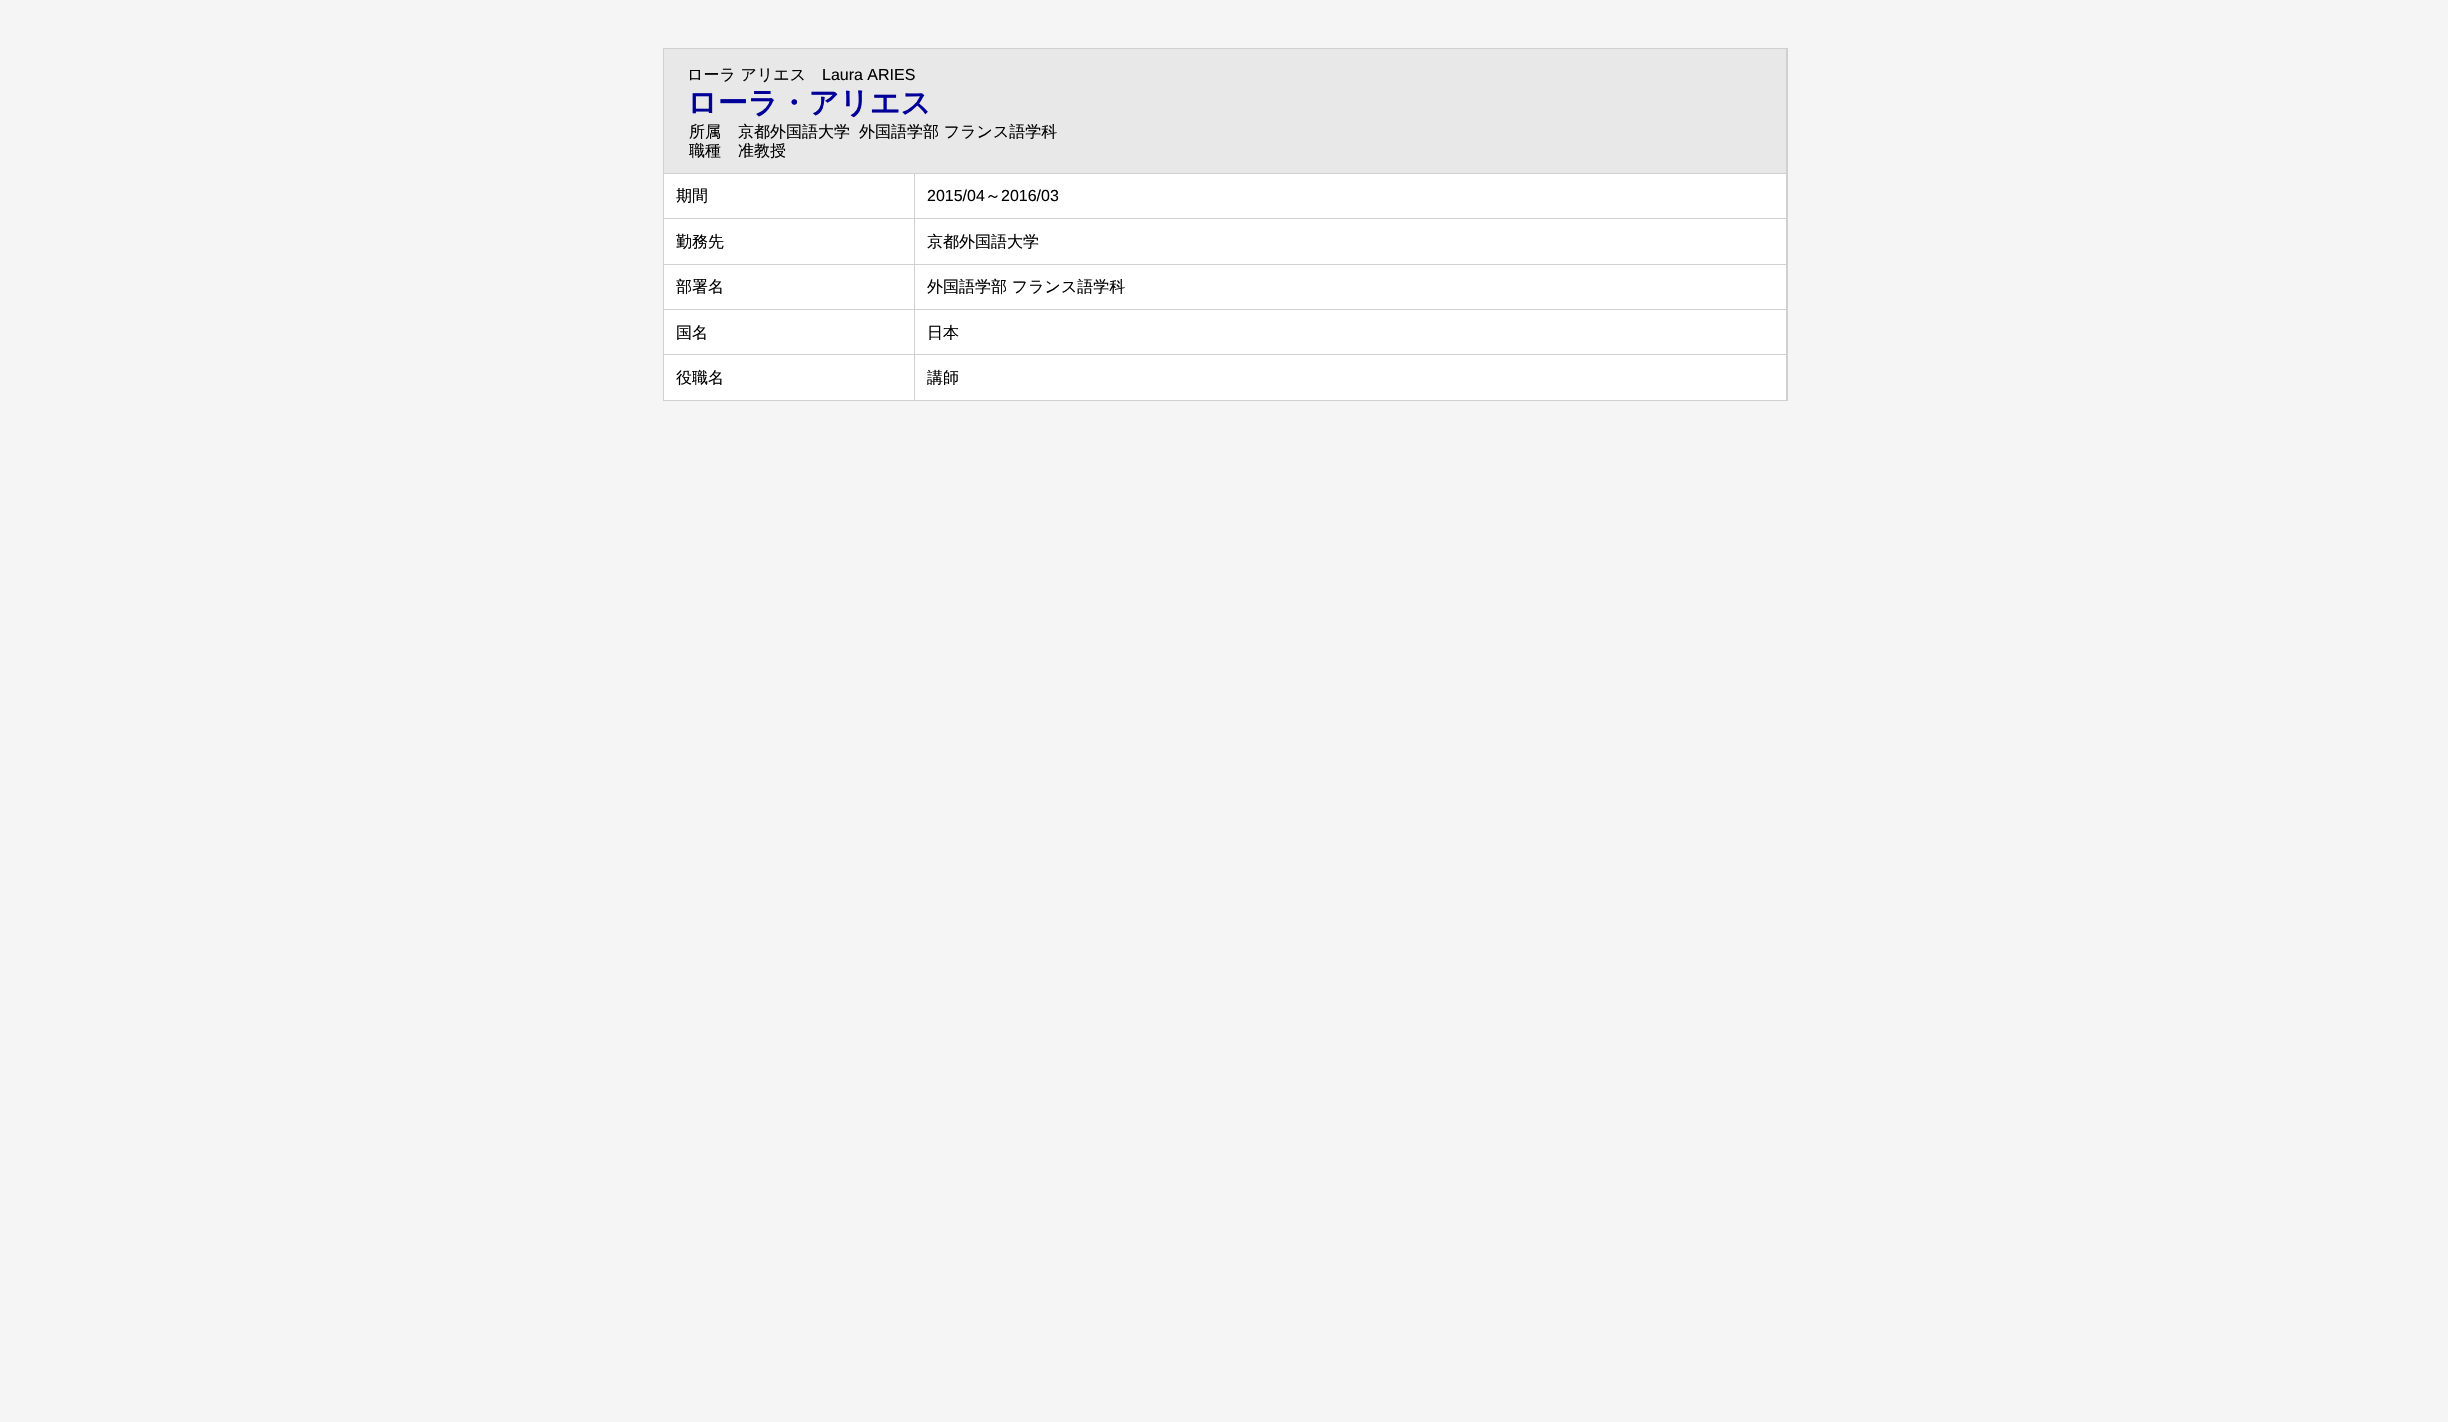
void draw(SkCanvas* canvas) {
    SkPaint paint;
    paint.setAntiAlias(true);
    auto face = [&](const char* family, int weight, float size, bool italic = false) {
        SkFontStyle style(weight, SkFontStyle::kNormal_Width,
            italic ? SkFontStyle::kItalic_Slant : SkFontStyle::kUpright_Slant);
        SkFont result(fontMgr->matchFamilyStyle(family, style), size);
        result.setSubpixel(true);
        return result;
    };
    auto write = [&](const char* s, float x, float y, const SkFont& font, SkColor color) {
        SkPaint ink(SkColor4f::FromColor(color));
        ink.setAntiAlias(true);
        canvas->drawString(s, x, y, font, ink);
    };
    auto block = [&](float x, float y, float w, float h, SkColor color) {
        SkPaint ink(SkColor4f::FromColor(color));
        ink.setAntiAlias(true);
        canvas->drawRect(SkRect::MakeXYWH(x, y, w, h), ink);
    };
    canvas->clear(SkColorSetRGB(245, 245, 245));
    block(663, 48, 1125, 353, SkColorSetRGB(208, 208, 208));
    block(664, 49, 1122, 124, SkColorSetRGB(232, 232, 232));
    auto kFont1 = face("WenQuanYi Zen Hei", 500, 16);
    write("ローラ アリエス", 687, 80, kFont1, SK_ColorBLACK);
    auto kFont2 = face("Liberation Sans", 400, 16);
    write("Laura ARIES", 822, 80, kFont2, SK_ColorBLACK);
    auto kFont3 = face("WenQuanYi Zen Hei", 700, 30);
    write("ローラ・アリエス", 687, 113, kFont3, SkColorSetRGB(0, 0, 153));
    write("所属", 689, 137, kFont1, SK_ColorBLACK);
    write("京都外国語大学", 738, 137, kFont1, SK_ColorBLACK);
    write("外国語学部 フランス語学科", 859, 137, kFont1, SK_ColorBLACK);
    write("職種", 689, 156, kFont1, SK_ColorBLACK);
    write("准教授", 738, 156, kFont1, SK_ColorBLACK);
    block(664, 174, 250, 44, SK_ColorWHITE);
    write("期間", 676, 201, kFont1, SK_ColorBLACK);
    block(915, 174, 871, 44, SK_ColorWHITE);
    write("2015/04", 927, 201, kFont2, SK_ColorBLACK);
    write("～", 985, 201, kFont1, SK_ColorBLACK);
    write("2016/03", 1001, 201, kFont2, SK_ColorBLACK);
    block(664, 219, 250, 45, SK_ColorWHITE);
    write("勤務先", 676, 247, kFont1, SK_ColorBLACK);
    block(915, 219, 871, 45, SK_ColorWHITE);
    write("京都外国語大学", 927, 247, kFont1, SK_ColorBLACK);
    block(664, 265, 250, 44, SK_ColorWHITE);
    write("部署名", 676, 292, kFont1, SK_ColorBLACK);
    block(915, 265, 871, 44, SK_ColorWHITE);
    write("外国語学部 フランス語学科", 927, 292, kFont1, SK_ColorBLACK);
    block(664, 310, 250, 44, SK_ColorWHITE);
    write("国名", 676, 338, kFont1, SK_ColorBLACK);
    block(915, 310, 871, 44, SK_ColorWHITE);
    write("日本", 927, 338, kFont1, SK_ColorBLACK);
    block(664, 355, 250, 45, SK_ColorWHITE);
    write("役職名", 676, 383, kFont1, SK_ColorBLACK);
    block(915, 355, 871, 45, SK_ColorWHITE);
    write("講師", 927, 383, kFont1, SK_ColorBLACK);
}
